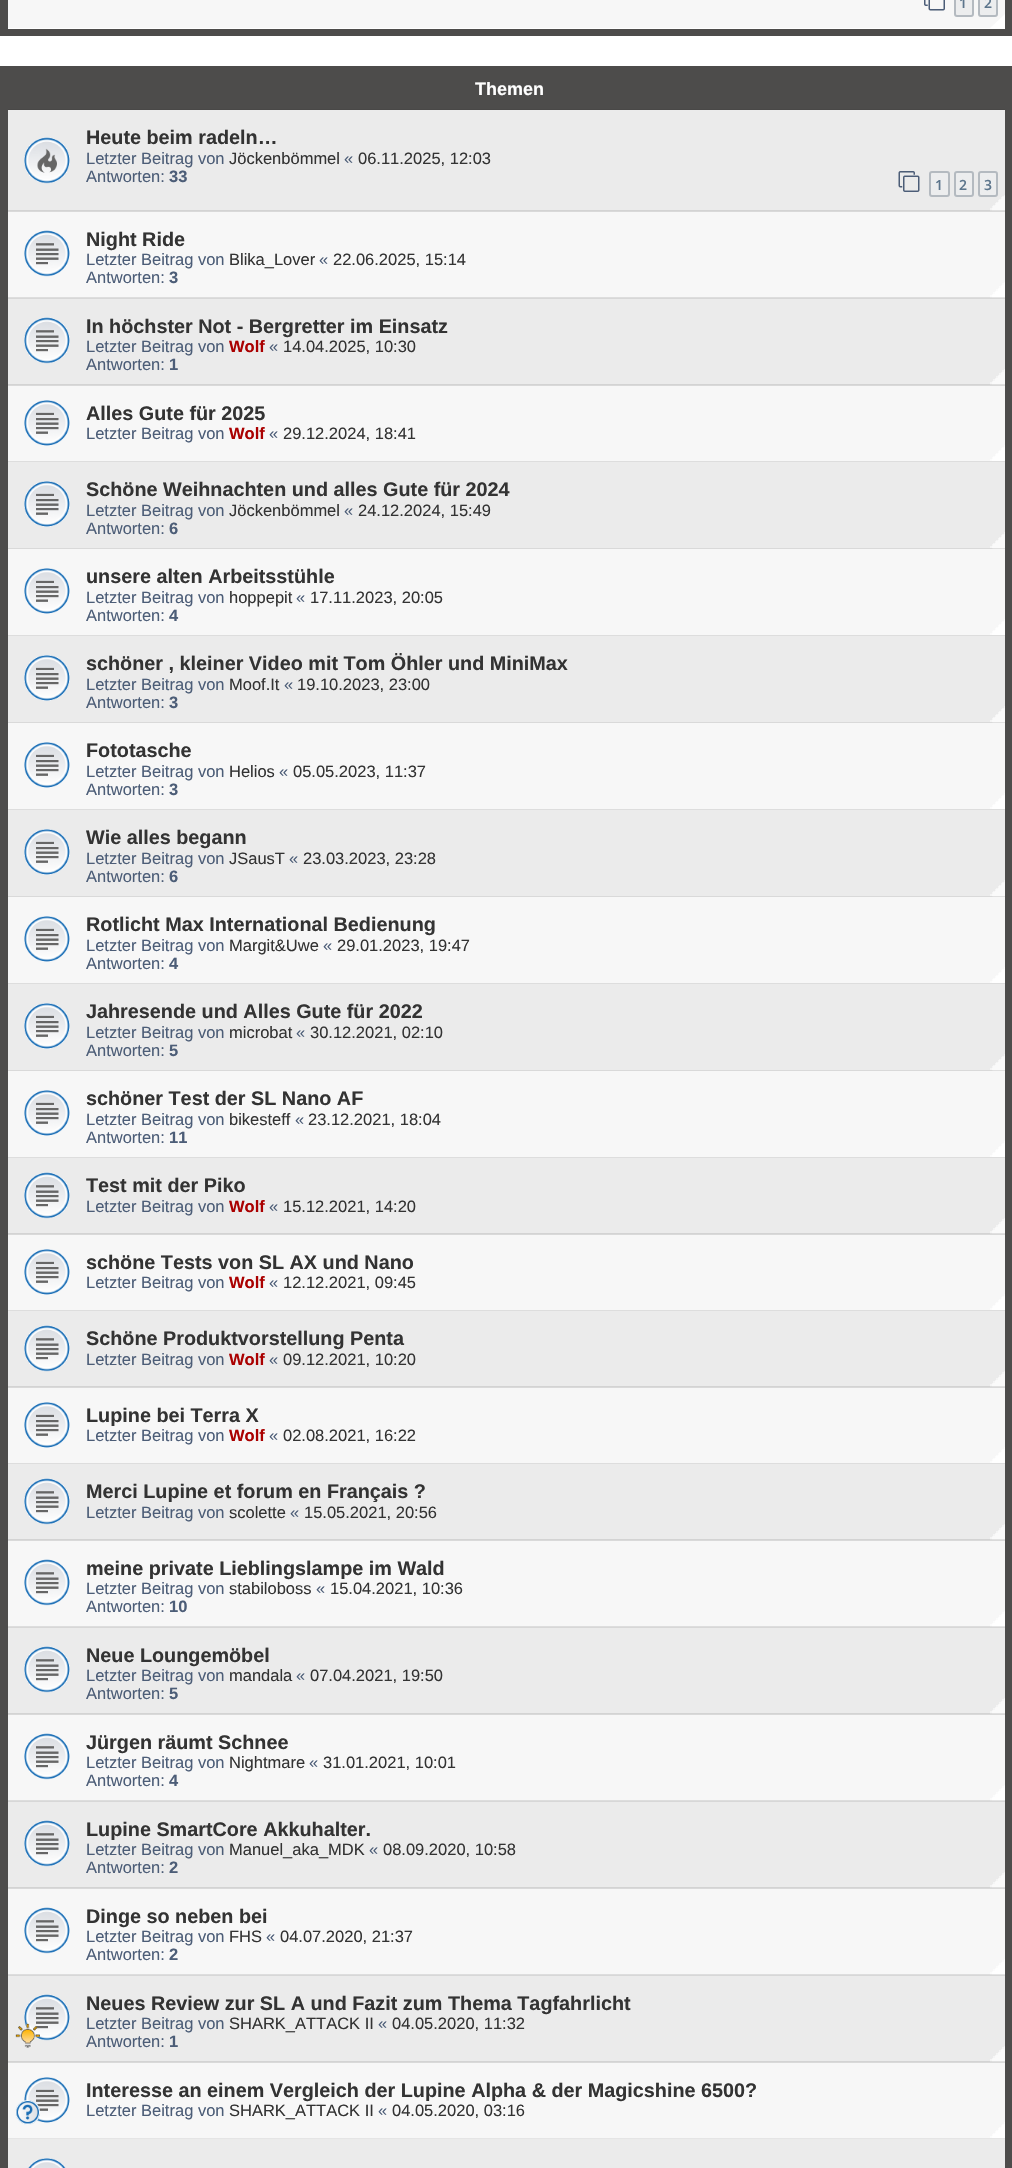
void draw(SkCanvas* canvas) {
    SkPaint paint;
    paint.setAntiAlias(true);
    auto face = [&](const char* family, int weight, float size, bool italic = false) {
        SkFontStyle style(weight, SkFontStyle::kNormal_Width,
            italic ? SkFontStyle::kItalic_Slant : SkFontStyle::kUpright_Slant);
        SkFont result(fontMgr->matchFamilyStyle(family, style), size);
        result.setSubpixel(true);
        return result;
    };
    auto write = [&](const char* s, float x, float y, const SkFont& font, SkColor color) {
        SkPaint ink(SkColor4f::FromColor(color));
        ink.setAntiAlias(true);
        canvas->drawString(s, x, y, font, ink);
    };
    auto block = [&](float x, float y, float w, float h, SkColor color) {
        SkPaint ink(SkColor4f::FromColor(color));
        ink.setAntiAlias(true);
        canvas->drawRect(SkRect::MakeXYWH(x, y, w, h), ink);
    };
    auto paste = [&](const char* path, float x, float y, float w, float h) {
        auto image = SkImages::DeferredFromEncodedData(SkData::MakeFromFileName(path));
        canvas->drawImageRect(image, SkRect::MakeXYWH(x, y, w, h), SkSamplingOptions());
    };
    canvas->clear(SK_ColorWHITE);
    block(0, 0, 1012, 36, SkColorSetRGB(77, 76, 75));
    block(8, 14, 997, 15, SK_ColorWHITE);
    canvas->save();
    canvas->clipRect(SkRect::MakeXYWH(8, 0, 997, 29));
    paint.setColor(SkColorSetRGB(247, 247, 247));
    canvas->drawPath(SkPathBuilder().moveTo(-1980, -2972).lineTo(990, -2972).lineTo(1005, -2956).lineTo(1005, 14).lineTo(990, 28).lineTo(-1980, 28).lineTo(-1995, 14).lineTo(-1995, -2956).close().detach(), paint);
    canvas->restore();
    paste("pic1.png", 924, 0, 21, 11);
    paint.setColor(SkColorSetRGB(236, 237, 238));
    canvas->drawRoundRect(SkRect::MakeXYWH(955, -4, 18, 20), 2, 2, paint);
    paint.setStyle(SkPaint::kStroke_Style);
    paint.setStrokeWidth(2);
    paint.setColor(SkColorSetRGB(180, 186, 192));
    canvas->drawRoundRect(SkRect::MakeXYWH(955, -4, 18, 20), 2, 2, paint);
    auto kFont1 = face("Open Sans", 600, 14);
    write("1", 959, 8, kFont1, SkColorSetRGB(92, 117, 140));
    paint.setStyle(SkPaint::kFill_Style);
    paint.setColor(SkColorSetRGB(236, 237, 238));
    canvas->drawRoundRect(SkRect::MakeXYWH(979, -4, 18, 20), 2, 2, paint);
    paint.setStyle(SkPaint::kStroke_Style);
    paint.setColor(SkColorSetRGB(180, 186, 192));
    canvas->drawRoundRect(SkRect::MakeXYWH(979, -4, 18, 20), 2, 2, paint);
    write("2", 984, 8, kFont1, SkColorSetRGB(92, 117, 140));
    block(0, 66, 1012, 2102, SkColorSetRGB(77, 76, 75));
    auto kFont2 = face("Liberation Sans", 700, 18);
    write("Themen", 475, 95, kFont2, SK_ColorWHITE);
    block(8, 110, 997, 102, SkColorSetRGB(250, 250, 250));
    paste("pic2.png", 8, 109, 997, 102);
    block(8, 210, 997, 2, SkColorSetARGB(26, 0, 0, 0));
    paste("pic3.png", 24, 137, 46, 47);
    auto kFont3 = face("Liberation Sans", 700, 19.8f);
    write("Heute beim radeln…", 86, 144, kFont3, SkColorSetRGB(51, 51, 51));
    auto kFont4 = face("Liberation Sans", 400, 16.5f);
    write("Letzter Beitrag von", 86, 164, kFont4, SkColorSetRGB(76, 93, 119));
    write("Jöckenbömmel", 229, 164, kFont4, SkColorSetRGB(51, 51, 51));
    write("«", 344, 164, kFont4, SkColorSetRGB(76, 93, 119));
    write("06.11.2025, 12:03", 358, 164, kFont4, SkColorSetRGB(51, 51, 51));
    write("Antworten:", 86, 182, kFont4, SkColorSetRGB(76, 93, 119));
    auto kFont5 = face("Liberation Sans", 700, 16.5f);
    write("33", 169, 182, kFont5, SkColorSetRGB(76, 93, 119));
    paste("pic4.png", 898, 171, 22, 21);
    paint.setStyle(SkPaint::kFill_Style);
    paint.setColor(SkColorSetRGB(236, 237, 238));
    canvas->drawRoundRect(SkRect::MakeXYWH(930, 172, 19, 24), 2, 2, paint);
    paint.setStyle(SkPaint::kStroke_Style);
    paint.setColor(SkColorSetRGB(180, 186, 192));
    canvas->drawRoundRect(SkRect::MakeXYWH(930, 172, 19, 24), 2, 2, paint);
    write("1", 935, 190, kFont1, SkColorSetRGB(92, 117, 140));
    paint.setStyle(SkPaint::kFill_Style);
    paint.setColor(SkColorSetRGB(236, 237, 238));
    canvas->drawRoundRect(SkRect::MakeXYWH(955, 172, 18, 24), 2, 2, paint);
    paint.setStyle(SkPaint::kStroke_Style);
    paint.setColor(SkColorSetRGB(180, 186, 192));
    canvas->drawRoundRect(SkRect::MakeXYWH(955, 172, 18, 24), 2, 2, paint);
    write("2", 959, 190, kFont1, SkColorSetRGB(92, 117, 140));
    paint.setStyle(SkPaint::kFill_Style);
    paint.setColor(SkColorSetRGB(236, 237, 238));
    canvas->drawRoundRect(SkRect::MakeXYWH(979, 172, 18, 24), 2, 2, paint);
    paint.setStyle(SkPaint::kStroke_Style);
    paint.setColor(SkColorSetRGB(180, 186, 192));
    canvas->drawRoundRect(SkRect::MakeXYWH(979, 172, 18, 24), 2, 2, paint);
    write("3", 984, 190, kFont1, SkColorSetRGB(92, 117, 140));
    block(8, 212, 997, 87, SK_ColorWHITE);
    paste("pic5.png", 8, 211, 997, 87);
    block(8, 297, 997, 2, SkColorSetARGB(26, 0, 0, 0));
    paste("pic6.png", 24, 230, 46, 47);
    write("Night Ride", 86, 246, kFont3, SkColorSetRGB(51, 51, 51));
    write("Letzter Beitrag von", 86, 265, kFont4, SkColorSetRGB(76, 93, 119));
    write("Blika_Lover", 229, 265, kFont4, SkColorSetRGB(51, 51, 51));
    write("«", 319, 265, kFont4, SkColorSetRGB(76, 93, 119));
    write("22.06.2025, 15:14", 333, 265, kFont4, SkColorSetRGB(51, 51, 51));
    write("Antworten:", 86, 283, kFont4, SkColorSetRGB(76, 93, 119));
    write("3", 169, 283, kFont5, SkColorSetRGB(76, 93, 119));
    block(8, 299, 997, 87, SkColorSetRGB(250, 250, 250));
    paste("pic7.png", 8, 298, 997, 87);
    block(8, 384, 997, 2, SkColorSetARGB(26, 0, 0, 0));
    paste("pic8.png", 24, 317, 46, 47);
    write("In höchster Not - Bergretter im Einsatz", 86, 333, kFont3, SkColorSetRGB(51, 51, 51));
    write("Letzter Beitrag von", 86, 352, kFont4, SkColorSetRGB(76, 93, 119));
    write("Wolf", 229, 352, kFont5, SkColorSetRGB(170, 0, 0));
    write("«", 269, 352, kFont4, SkColorSetRGB(76, 93, 119));
    write("14.04.2025, 10:30", 283, 352, kFont4, SkColorSetRGB(51, 51, 51));
    write("Antworten:", 86, 370, kFont4, SkColorSetRGB(76, 93, 119));
    write("1", 169, 370, kFont5, SkColorSetRGB(76, 93, 119));
    block(8, 386, 997, 76, SK_ColorWHITE);
    paste("pic9.png", 8, 385, 997, 76);
    block(8, 461, 997, 1, SkColorSetARGB(26, 0, 0, 0));
    paste("pic10.png", 24, 400, 46, 46);
    write("Alles Gute für 2025", 86, 420, kFont3, SkColorSetRGB(51, 51, 51));
    write("Letzter Beitrag von", 86, 439, kFont4, SkColorSetRGB(76, 93, 119));
    write("Wolf", 229, 439, kFont5, SkColorSetRGB(170, 0, 0));
    write("«", 269, 439, kFont4, SkColorSetRGB(76, 93, 119));
    write("29.12.2024, 18:41", 283, 439, kFont4, SkColorSetRGB(51, 51, 51));
    block(8, 462, 997, 87, SkColorSetRGB(250, 250, 250));
    paste("pic11.png", 8, 461, 997, 88);
    block(8, 548, 997, 1, SkColorSetARGB(26, 0, 0, 0));
    paste("pic12.png", 24, 481, 46, 46);
    write("Schöne Weihnachten und alles Gute für 2024", 86, 496, kFont3, SkColorSetRGB(51, 51, 51));
    write("Letzter Beitrag von", 86, 516, kFont4, SkColorSetRGB(76, 93, 119));
    write("Jöckenbömmel", 229, 516, kFont4, SkColorSetRGB(51, 51, 51));
    write("«", 344, 516, kFont4, SkColorSetRGB(76, 93, 119));
    write("24.12.2024, 15:49", 358, 516, kFont4, SkColorSetRGB(51, 51, 51));
    write("Antworten:", 86, 534, kFont4, SkColorSetRGB(76, 93, 119));
    write("6", 169, 534, kFont5, SkColorSetRGB(76, 93, 119));
    block(8, 549, 997, 87, SK_ColorWHITE);
    paste("pic13.png", 8, 549, 997, 86);
    block(8, 635, 997, 1, SkColorSetARGB(26, 0, 0, 0));
    paste("pic10.png", 24, 568, 46, 46);
    write("unsere alten Arbeitsstühle", 86, 583, kFont3, SkColorSetRGB(51, 51, 51));
    write("Letzter Beitrag von", 86, 603, kFont4, SkColorSetRGB(76, 93, 119));
    write("hoppepit", 229, 603, kFont4, SkColorSetRGB(51, 51, 51));
    write("«", 296, 603, kFont4, SkColorSetRGB(76, 93, 119));
    write("17.11.2023, 20:05", 310, 603, kFont4, SkColorSetRGB(51, 51, 51));
    write("Antworten:", 86, 621, kFont4, SkColorSetRGB(76, 93, 119));
    write("4", 169, 621, kFont5, SkColorSetRGB(76, 93, 119));
    block(8, 636, 997, 87, SkColorSetRGB(250, 250, 250));
    paste("pic11.png", 8, 635, 997, 88);
    block(8, 722, 997, 1, SkColorSetARGB(26, 0, 0, 0));
    paste("pic12.png", 24, 655, 46, 46);
    write("schöner , kleiner Video mit Tom Öhler und MiniMax", 86, 670, kFont3, SkColorSetRGB(51, 51, 51));
    write("Letzter Beitrag von", 86, 690, kFont4, SkColorSetRGB(76, 93, 119));
    write("Moof.It", 229, 690, kFont4, SkColorSetRGB(51, 51, 51));
    write("«", 284, 690, kFont4, SkColorSetRGB(76, 93, 119));
    write("19.10.2023, 23:00", 297, 690, kFont4, SkColorSetRGB(51, 51, 51));
    write("Antworten:", 86, 708, kFont4, SkColorSetRGB(76, 93, 119));
    write("3", 169, 708, kFont5, SkColorSetRGB(76, 93, 119));
    block(8, 723, 997, 87, SK_ColorWHITE);
    paste("pic13.png", 8, 723, 997, 86);
    block(8, 809, 997, 1, SkColorSetARGB(26, 0, 0, 0));
    paste("pic10.png", 24, 742, 46, 46);
    write("Fototasche", 86, 757, kFont3, SkColorSetRGB(51, 51, 51));
    write("Letzter Beitrag von", 86, 777, kFont4, SkColorSetRGB(76, 93, 119));
    write("Helios", 229, 777, kFont4, SkColorSetRGB(51, 51, 51));
    write("«", 279, 777, kFont4, SkColorSetRGB(76, 93, 119));
    write("05.05.2023, 11:37", 293, 777, kFont4, SkColorSetRGB(51, 51, 51));
    write("Antworten:", 86, 795, kFont4, SkColorSetRGB(76, 93, 119));
    write("3", 169, 795, kFont5, SkColorSetRGB(76, 93, 119));
    block(8, 810, 997, 87, SkColorSetRGB(250, 250, 250));
    paste("pic11.png", 8, 809, 997, 88);
    block(8, 896, 997, 1, SkColorSetARGB(26, 0, 0, 0));
    paste("pic12.png", 24, 829, 46, 46);
    write("Wie alles begann", 86, 844, kFont3, SkColorSetRGB(51, 51, 51));
    write("Letzter Beitrag von", 86, 864, kFont4, SkColorSetRGB(76, 93, 119));
    write("JSausT", 229, 864, kFont4, SkColorSetRGB(51, 51, 51));
    write("«", 289, 864, kFont4, SkColorSetRGB(76, 93, 119));
    write("23.03.2023, 23:28", 303, 864, kFont4, SkColorSetRGB(51, 51, 51));
    write("Antworten:", 86, 882, kFont4, SkColorSetRGB(76, 93, 119));
    write("6", 169, 882, kFont5, SkColorSetRGB(76, 93, 119));
    block(8, 897, 997, 87, SK_ColorWHITE);
    paste("pic13.png", 8, 897, 997, 86);
    block(8, 983, 997, 1, SkColorSetARGB(26, 0, 0, 0));
    paste("pic10.png", 24, 916, 46, 46);
    write("Rotlicht Max International Bedienung", 86, 931, kFont3, SkColorSetRGB(51, 51, 51));
    write("Letzter Beitrag von", 86, 951, kFont4, SkColorSetRGB(76, 93, 119));
    write("Margit&Uwe", 229, 951, kFont4, SkColorSetRGB(51, 51, 51));
    write("«", 323, 951, kFont4, SkColorSetRGB(76, 93, 119));
    write("29.01.2023, 19:47", 337, 951, kFont4, SkColorSetRGB(51, 51, 51));
    write("Antworten:", 86, 969, kFont4, SkColorSetRGB(76, 93, 119));
    write("4", 169, 969, kFont5, SkColorSetRGB(76, 93, 119));
    block(8, 984, 997, 87, SkColorSetRGB(250, 250, 250));
    paste("pic11.png", 8, 983, 997, 88);
    block(8, 1070, 997, 1, SkColorSetARGB(26, 0, 0, 0));
    paste("pic12.png", 24, 1003, 46, 46);
    write("Jahresende und Alles Gute für 2022", 86, 1018, kFont3, SkColorSetRGB(51, 51, 51));
    write("Letzter Beitrag von", 86, 1038, kFont4, SkColorSetRGB(76, 93, 119));
    write("microbat", 229, 1038, kFont4, SkColorSetRGB(51, 51, 51));
    write("«", 296, 1038, kFont4, SkColorSetRGB(76, 93, 119));
    write("30.12.2021, 02:10", 310, 1038, kFont4, SkColorSetRGB(51, 51, 51));
    write("Antworten:", 86, 1056, kFont4, SkColorSetRGB(76, 93, 119));
    write("5", 169, 1056, kFont5, SkColorSetRGB(76, 93, 119));
    block(8, 1071, 997, 87, SK_ColorWHITE);
    paste("pic13.png", 8, 1071, 997, 86);
    block(8, 1157, 997, 1, SkColorSetARGB(26, 0, 0, 0));
    paste("pic10.png", 24, 1090, 46, 46);
    write("schöner Test der SL Nano AF", 86, 1105, kFont3, SkColorSetRGB(51, 51, 51));
    write("Letzter Beitrag von", 86, 1125, kFont4, SkColorSetRGB(76, 93, 119));
    write("bikesteff", 229, 1125, kFont4, SkColorSetRGB(51, 51, 51));
    write("«", 295, 1125, kFont4, SkColorSetRGB(76, 93, 119));
    write("23.12.2021, 18:04", 308, 1125, kFont4, SkColorSetRGB(51, 51, 51));
    write("Antworten:", 86, 1143, kFont4, SkColorSetRGB(76, 93, 119));
    write("11", 169, 1143, kFont5, SkColorSetRGB(76, 93, 119));
    block(8, 1158, 997, 77, SkColorSetRGB(250, 250, 250));
    paste("pic14.png", 8, 1157, 997, 77);
    block(8, 1233, 997, 2, SkColorSetARGB(26, 0, 0, 0));
    paste("pic8.png", 24, 1172, 46, 47);
    write("Test mit der Piko", 86, 1192, kFont3, SkColorSetRGB(51, 51, 51));
    write("Letzter Beitrag von", 86, 1212, kFont4, SkColorSetRGB(76, 93, 119));
    write("Wolf", 229, 1212, kFont5, SkColorSetRGB(170, 0, 0));
    write("«", 269, 1212, kFont4, SkColorSetRGB(76, 93, 119));
    write("15.12.2021, 14:20", 283, 1212, kFont4, SkColorSetRGB(51, 51, 51));
    block(8, 1235, 997, 76, SK_ColorWHITE);
    paste("pic9.png", 8, 1234, 997, 76);
    block(8, 1310, 997, 1, SkColorSetARGB(26, 0, 0, 0));
    paste("pic10.png", 24, 1249, 46, 46);
    write("schöne Tests von SL AX und Nano", 86, 1269, kFont3, SkColorSetRGB(51, 51, 51));
    write("Letzter Beitrag von", 86, 1288, kFont4, SkColorSetRGB(76, 93, 119));
    write("Wolf", 229, 1288, kFont5, SkColorSetRGB(170, 0, 0));
    write("«", 269, 1288, kFont4, SkColorSetRGB(76, 93, 119));
    write("12.12.2021, 09:45", 283, 1288, kFont4, SkColorSetRGB(51, 51, 51));
    block(8, 1311, 997, 77, SkColorSetRGB(250, 250, 250));
    paste("pic14.png", 8, 1310, 997, 77);
    block(8, 1386, 997, 2, SkColorSetARGB(26, 0, 0, 0));
    paste("pic8.png", 24, 1325, 46, 47);
    write("Schöne Produktvorstellung Penta", 86, 1345, kFont3, SkColorSetRGB(51, 51, 51));
    write("Letzter Beitrag von", 86, 1365, kFont4, SkColorSetRGB(76, 93, 119));
    write("Wolf", 229, 1365, kFont5, SkColorSetRGB(170, 0, 0));
    write("«", 269, 1365, kFont4, SkColorSetRGB(76, 93, 119));
    write("09.12.2021, 10:20", 283, 1365, kFont4, SkColorSetRGB(51, 51, 51));
    block(8, 1388, 997, 76, SK_ColorWHITE);
    paste("pic9.png", 8, 1387, 997, 76);
    block(8, 1463, 997, 1, SkColorSetARGB(26, 0, 0, 0));
    paste("pic10.png", 24, 1402, 46, 46);
    write("Lupine bei Terra X", 86, 1422, kFont3, SkColorSetRGB(51, 51, 51));
    write("Letzter Beitrag von", 86, 1441, kFont4, SkColorSetRGB(76, 93, 119));
    write("Wolf", 229, 1441, kFont5, SkColorSetRGB(170, 0, 0));
    write("«", 269, 1441, kFont4, SkColorSetRGB(76, 93, 119));
    write("02.08.2021, 16:22", 283, 1441, kFont4, SkColorSetRGB(51, 51, 51));
    block(8, 1464, 997, 77, SkColorSetRGB(250, 250, 250));
    paste("pic14.png", 8, 1463, 997, 77);
    block(8, 1539, 997, 2, SkColorSetARGB(26, 0, 0, 0));
    paste("pic8.png", 24, 1478, 46, 47);
    write("Merci Lupine et forum en Français ?", 86, 1498, kFont3, SkColorSetRGB(51, 51, 51));
    write("Letzter Beitrag von", 86, 1518, kFont4, SkColorSetRGB(76, 93, 119));
    write("scolette", 229, 1518, kFont4, SkColorSetRGB(51, 51, 51));
    write("«", 290, 1518, kFont4, SkColorSetRGB(76, 93, 119));
    write("15.05.2021, 20:56", 304, 1518, kFont4, SkColorSetRGB(51, 51, 51));
    block(8, 1541, 997, 87, SK_ColorWHITE);
    paste("pic5.png", 8, 1540, 997, 87);
    block(8, 1626, 997, 2, SkColorSetARGB(26, 0, 0, 0));
    paste("pic6.png", 24, 1559, 46, 47);
    write("meine private Lieblingslampe im Wald", 86, 1575, kFont3, SkColorSetRGB(51, 51, 51));
    write("Letzter Beitrag von", 86, 1594, kFont4, SkColorSetRGB(76, 93, 119));
    write("stabiloboss", 229, 1594, kFont4, SkColorSetRGB(51, 51, 51));
    write("«", 316, 1594, kFont4, SkColorSetRGB(76, 93, 119));
    write("15.04.2021, 10:36", 330, 1594, kFont4, SkColorSetRGB(51, 51, 51));
    write("Antworten:", 86, 1612, kFont4, SkColorSetRGB(76, 93, 119));
    write("10", 169, 1612, kFont5, SkColorSetRGB(76, 93, 119));
    block(8, 1628, 997, 87, SkColorSetRGB(250, 250, 250));
    paste("pic7.png", 8, 1627, 997, 87);
    block(8, 1713, 997, 2, SkColorSetARGB(26, 0, 0, 0));
    paste("pic8.png", 24, 1646, 46, 47);
    write("Neue Loungemöbel", 86, 1662, kFont3, SkColorSetRGB(51, 51, 51));
    write("Letzter Beitrag von", 86, 1681, kFont4, SkColorSetRGB(76, 93, 119));
    write("mandala", 229, 1681, kFont4, SkColorSetRGB(51, 51, 51));
    write("«", 296, 1681, kFont4, SkColorSetRGB(76, 93, 119));
    write("07.04.2021, 19:50", 310, 1681, kFont4, SkColorSetRGB(51, 51, 51));
    write("Antworten:", 86, 1699, kFont4, SkColorSetRGB(76, 93, 119));
    write("5", 169, 1699, kFont5, SkColorSetRGB(76, 93, 119));
    block(8, 1715, 997, 87, SK_ColorWHITE);
    paste("pic5.png", 8, 1714, 997, 87);
    block(8, 1800, 997, 2, SkColorSetARGB(26, 0, 0, 0));
    paste("pic6.png", 24, 1733, 46, 47);
    write("Jürgen räumt Schnee", 86, 1749, kFont3, SkColorSetRGB(51, 51, 51));
    write("Letzter Beitrag von", 86, 1768, kFont4, SkColorSetRGB(76, 93, 119));
    write("Nightmare", 229, 1768, kFont4, SkColorSetRGB(51, 51, 51));
    write("«", 309, 1768, kFont4, SkColorSetRGB(76, 93, 119));
    write("31.01.2021, 10:01", 323, 1768, kFont4, SkColorSetRGB(51, 51, 51));
    write("Antworten:", 86, 1786, kFont4, SkColorSetRGB(76, 93, 119));
    write("4", 169, 1786, kFont5, SkColorSetRGB(76, 93, 119));
    block(8, 1802, 997, 87, SkColorSetRGB(250, 250, 250));
    paste("pic7.png", 8, 1801, 997, 87);
    block(8, 1887, 997, 2, SkColorSetARGB(26, 0, 0, 0));
    paste("pic8.png", 24, 1820, 46, 47);
    write("Lupine SmartCore Akkuhalter.", 86, 1836, kFont3, SkColorSetRGB(51, 51, 51));
    write("Letzter Beitrag von", 86, 1855, kFont4, SkColorSetRGB(76, 93, 119));
    write("Manuel_aka_MDK", 229, 1855, kFont4, SkColorSetRGB(51, 51, 51));
    write("«", 369, 1855, kFont4, SkColorSetRGB(76, 93, 119));
    write("08.09.2020, 10:58", 383, 1855, kFont4, SkColorSetRGB(51, 51, 51));
    write("Antworten:", 86, 1873, kFont4, SkColorSetRGB(76, 93, 119));
    write("2", 169, 1873, kFont5, SkColorSetRGB(76, 93, 119));
    block(8, 1889, 997, 87, SK_ColorWHITE);
    paste("pic5.png", 8, 1888, 997, 87);
    block(8, 1974, 997, 2, SkColorSetARGB(26, 0, 0, 0));
    paste("pic6.png", 24, 1907, 46, 47);
    write("Dinge so neben bei", 86, 1923, kFont3, SkColorSetRGB(51, 51, 51));
    write("Letzter Beitrag von", 86, 1942, kFont4, SkColorSetRGB(76, 93, 119));
    write("FHS", 229, 1942, kFont4, SkColorSetRGB(51, 51, 51));
    write("«", 266, 1942, kFont4, SkColorSetRGB(76, 93, 119));
    write("04.07.2020, 21:37", 280, 1942, kFont4, SkColorSetRGB(51, 51, 51));
    write("Antworten:", 86, 1960, kFont4, SkColorSetRGB(76, 93, 119));
    write("2", 169, 1960, kFont5, SkColorSetRGB(76, 93, 119));
    block(8, 1976, 997, 87, SkColorSetRGB(250, 250, 250));
    paste("pic7.png", 8, 1975, 997, 87);
    block(8, 2061, 997, 2, SkColorSetARGB(26, 0, 0, 0));
    paste("pic8.png", 24, 1994, 46, 47);
    paste("pic15.png", 15, 2023, 25, 25);
    write("Neues Review zur SL A und Fazit zum Thema Tagfahrlicht", 86, 2010, kFont3, SkColorSetRGB(51, 51, 51));
    write("Letzter Beitrag von", 86, 2029, kFont4, SkColorSetRGB(76, 93, 119));
    write("SHARK_ATTACK II", 229, 2029, kFont4, SkColorSetRGB(51, 51, 51));
    write("«", 378, 2029, kFont4, SkColorSetRGB(76, 93, 119));
    write("04.05.2020, 11:32", 392, 2029, kFont4, SkColorSetRGB(51, 51, 51));
    write("Antworten:", 86, 2047, kFont4, SkColorSetRGB(76, 93, 119));
    write("1", 169, 2047, kFont5, SkColorSetRGB(76, 93, 119));
    block(8, 2063, 997, 76, SK_ColorWHITE);
    paste("pic9.png", 8, 2062, 997, 76);
    block(8, 2138, 997, 1, SkColorSetARGB(26, 0, 0, 0));
    paste("pic10.png", 24, 2077, 46, 46);
    paste("pic16.png", 15, 2100, 25, 25);
    write("Interesse an einem Vergleich der Lupine Alpha & der Magicshine 6500?", 86, 2097, kFont3, SkColorSetRGB(51, 51, 51));
    write("Letzter Beitrag von", 86, 2116, kFont4, SkColorSetRGB(76, 93, 119));
    write("SHARK_ATTACK II", 229, 2116, kFont4, SkColorSetRGB(51, 51, 51));
    write("«", 378, 2116, kFont4, SkColorSetRGB(76, 93, 119));
    write("04.05.2020, 03:16", 392, 2116, kFont4, SkColorSetRGB(51, 51, 51));
    canvas->save();
    canvas->clipRect(SkRect::MakeXYWH(8, 2139, 997, 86));
    paint.setStyle(SkPaint::kFill_Style);
    paint.setColor(SkColorSetRGB(235, 235, 235));
    canvas->drawPath(SkPathBuilder().moveTo(-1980, -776).lineTo(990, -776).lineTo(1005, -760).lineTo(1005, 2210).lineTo(990, 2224).lineTo(-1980, 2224).lineTo(-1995, 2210).lineTo(-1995, -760).close().detach(), paint);
    canvas->restore();
    paste("pic17.png", 28, 2158, 38, 10);
}
